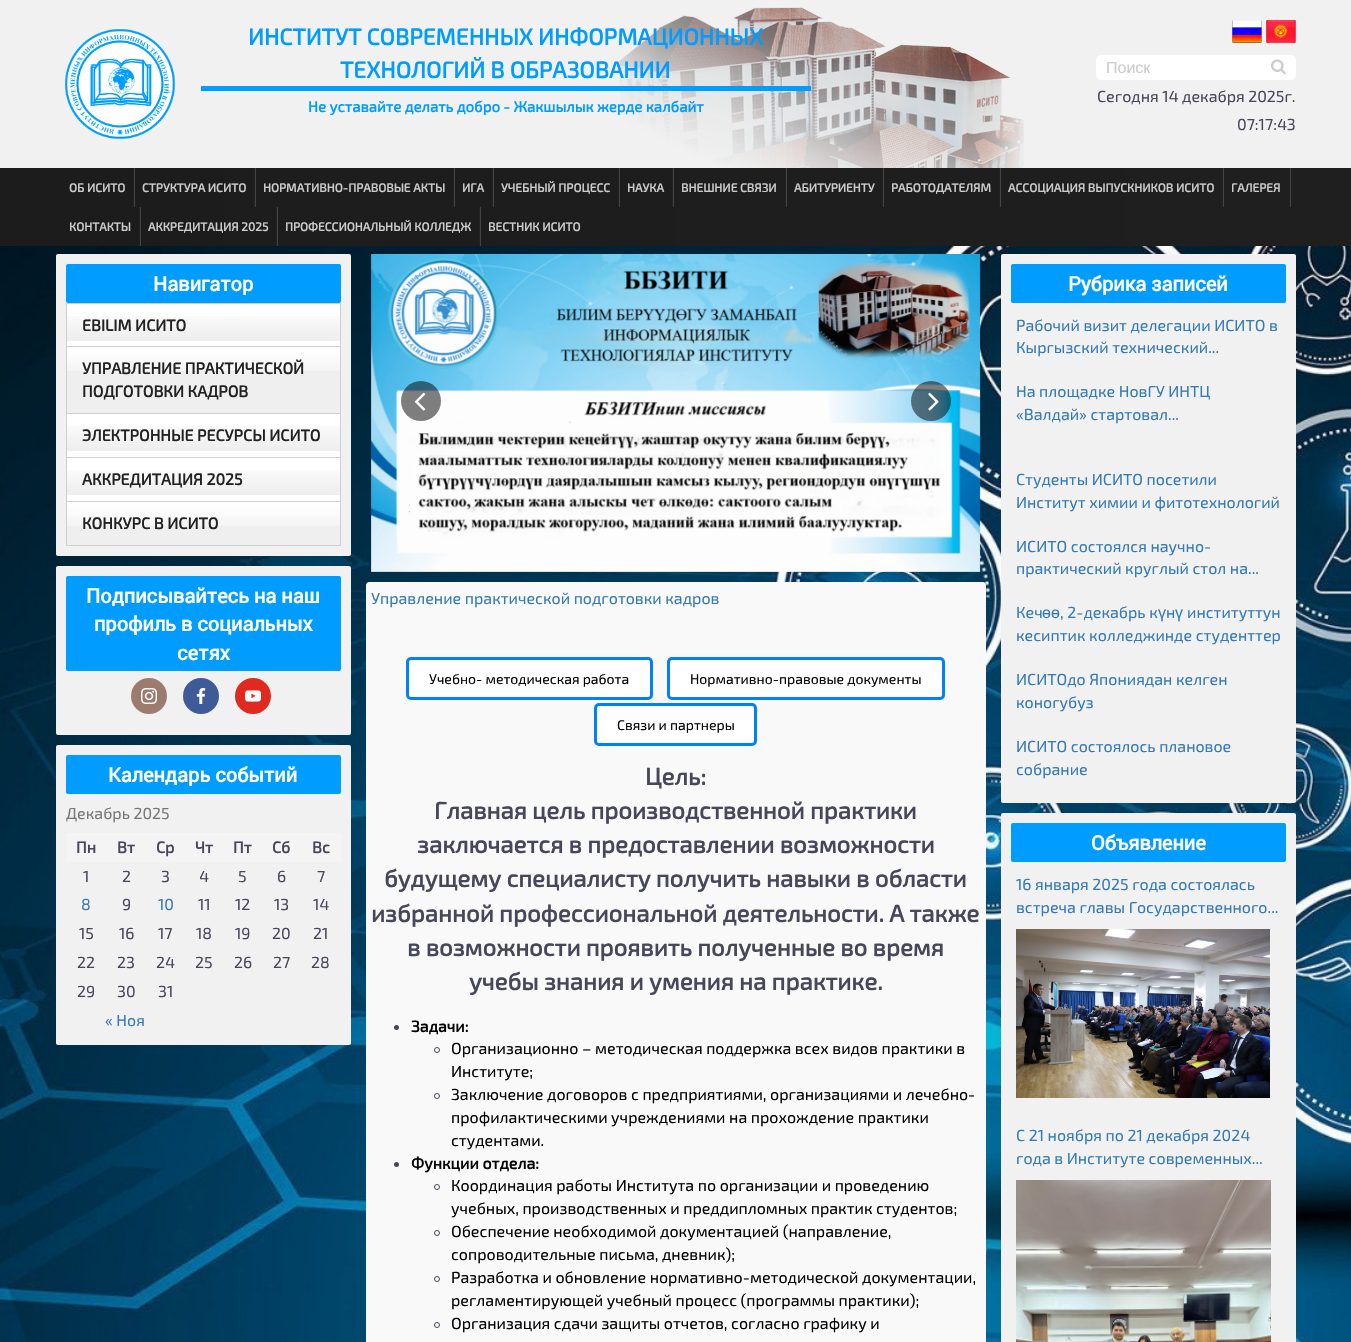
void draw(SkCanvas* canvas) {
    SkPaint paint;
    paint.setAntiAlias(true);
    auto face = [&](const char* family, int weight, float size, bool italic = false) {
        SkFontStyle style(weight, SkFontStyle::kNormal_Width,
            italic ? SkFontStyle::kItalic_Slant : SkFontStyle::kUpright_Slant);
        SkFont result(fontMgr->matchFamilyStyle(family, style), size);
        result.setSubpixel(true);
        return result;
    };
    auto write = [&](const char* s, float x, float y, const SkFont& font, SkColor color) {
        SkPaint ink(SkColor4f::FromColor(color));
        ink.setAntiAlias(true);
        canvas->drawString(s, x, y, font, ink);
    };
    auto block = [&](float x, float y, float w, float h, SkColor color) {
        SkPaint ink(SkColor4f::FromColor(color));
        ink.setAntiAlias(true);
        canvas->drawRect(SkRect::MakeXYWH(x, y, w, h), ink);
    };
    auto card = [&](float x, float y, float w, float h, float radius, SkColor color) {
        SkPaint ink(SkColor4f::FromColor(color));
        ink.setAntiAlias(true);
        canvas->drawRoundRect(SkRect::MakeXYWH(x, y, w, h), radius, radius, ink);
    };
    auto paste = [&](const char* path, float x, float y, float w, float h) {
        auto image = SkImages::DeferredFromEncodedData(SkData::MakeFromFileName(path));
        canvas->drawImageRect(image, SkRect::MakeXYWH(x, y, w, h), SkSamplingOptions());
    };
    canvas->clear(SK_ColorWHITE);
    block(0, 0, 1351, 168, SkColorSetRGB(241, 241, 241));
    paste("pic1.png", 619, 7, 405, 161);
    paste("pic2.png", 65, 29, 110, 110);
    auto kFont1 = face("Exo 2", 700, 23);
    write("ИНСТИТУТ СОВРЕМЕННЫХ ИНФОРМАЦИОННЫХ", 248, 45, kFont1, SkColorSetRGB(0, 156, 255));
    write("ТЕХНОЛОГИЙ В ОБРАЗОВАНИИ", 340, 78, kFont1, SkColorSetRGB(0, 156, 255));
    block(201, 86, 610, 5, SkColorSetRGB(0, 156, 255));
    auto kFont2 = face("Exo 2", 700, 15);
    write("Не уставайте делать добро - Жакшылык жерде калбайт", 308, 112, kFont2, SkColorSetRGB(0, 156, 255));
    paste("pic3.png", 1232, 20, 30, 23);
    paste("pic4.png", 1266, 20, 30, 23);
    card(1096, 55, 200, 25, 5, SK_ColorWHITE);
    auto kFont3 = face("Liberation Sans", 400, 16);
    write("Поиск", 1106, 73, kFont3, SkColorSetRGB(204, 204, 204));
    paste("pic5.png", 1271, 59, 15, 16);
    auto kFont4 = face("Exo 2", 400, 16);
    write("Сегодня 14 декабря 2025г.", 1097, 102, kFont4, SkColorSetRGB(71, 71, 92));
    write("07:17:43", 1237, 130, kFont4, SkColorSetRGB(71, 71, 92));
    {
        const SkColor colors[] = {SkColorSetRGB(28, 28, 28), SkColorSetRGB(31, 31, 31)};
        const float stops[] = {0, 1};
        const SkPoint ends[] = {{0, 207}, {1351, 207}};
        paint.setShader(SkGradientShader::MakeLinear(ends, colors, stops, 2, SkTileMode::kClamp));
        paint.setAlpha(255);
    }
    canvas->drawRect(SkRect::MakeXYWH(0, 168, 1351, 78), paint);
    block(134, 168, 1, 39, SkColorSetRGB(68, 68, 68));
    block(133, 168, 1, 39, SkColorSetRGB(34, 34, 34));
    auto kFont5 = face("Exo 2", 700, 12);
    write("ОБ ИСИТО", 69, 192, kFont5, SkColorSetRGB(204, 204, 204));
    block(255, 168, 1, 39, SkColorSetRGB(68, 68, 68));
    block(254, 168, 1, 39, SkColorSetRGB(34, 34, 34));
    write("СТРУКТУРА ИСИТО", 142, 192, kFont5, SkColorSetRGB(204, 204, 204));
    block(454, 168, 1, 39, SkColorSetRGB(68, 68, 68));
    block(453, 168, 1, 39, SkColorSetRGB(34, 34, 34));
    write("НОРМАТИВНО-ПРАВОВЫЕ АКТЫ", 263, 192, kFont5, SkColorSetRGB(204, 204, 204));
    block(493, 168, 1, 39, SkColorSetRGB(68, 68, 68));
    block(492, 168, 1, 39, SkColorSetRGB(34, 34, 34));
    write("ИГА", 462, 192, kFont5, SkColorSetRGB(204, 204, 204));
    block(619, 168, 1, 39, SkColorSetRGB(68, 68, 68));
    block(618, 168, 1, 39, SkColorSetRGB(34, 34, 34));
    write("УЧЕБНЫЙ ПРОЦЕСС", 501, 192, kFont5, SkColorSetRGB(204, 204, 204));
    block(673, 168, 1, 39, SkColorSetRGB(68, 68, 68));
    block(672, 168, 1, 39, SkColorSetRGB(34, 34, 34));
    write("НАУКА", 627, 192, kFont5, SkColorSetRGB(204, 204, 204));
    block(786, 168, 1, 39, SkColorSetRGB(68, 68, 68));
    block(785, 168, 1, 39, SkColorSetRGB(34, 34, 34));
    write("ВНЕШНИЕ СВЯЗИ", 681, 192, kFont5, SkColorSetRGB(204, 204, 204));
    block(883, 168, 1, 39, SkColorSetRGB(68, 68, 68));
    block(882, 168, 1, 39, SkColorSetRGB(34, 34, 34));
    write("АБИТУРИЕНТУ", 794, 192, kFont5, SkColorSetRGB(204, 204, 204));
    block(1000, 168, 1, 39, SkColorSetRGB(68, 68, 68));
    block(999, 168, 1, 39, SkColorSetRGB(34, 34, 34));
    write("РАБОТОДАТЕЛЯМ", 891, 192, kFont5, SkColorSetRGB(204, 204, 204));
    block(1223, 168, 1, 39, SkColorSetRGB(68, 68, 68));
    block(1222, 168, 1, 39, SkColorSetRGB(34, 34, 34));
    write("АССОЦИАЦИЯ ВЫПУСКНИКОВ ИСИТО", 1008, 192, kFont5, SkColorSetRGB(204, 204, 204));
    block(1290, 168, 1, 39, SkColorSetRGB(68, 68, 68));
    block(1289, 168, 1, 39, SkColorSetRGB(34, 34, 34));
    write("ГАЛЕРЕЯ", 1231, 192, kFont5, SkColorSetRGB(204, 204, 204));
    block(140, 207, 1, 39, SkColorSetRGB(68, 68, 68));
    block(139, 207, 1, 39, SkColorSetRGB(34, 34, 34));
    write("КОНТАКТЫ", 69, 231, kFont5, SkColorSetRGB(204, 204, 204));
    block(277, 207, 1, 39, SkColorSetRGB(68, 68, 68));
    block(276, 207, 1, 39, SkColorSetRGB(34, 34, 34));
    write("АККРЕДИТАЦИЯ 2025", 148, 231, kFont5, SkColorSetRGB(204, 204, 204));
    block(480, 207, 1, 39, SkColorSetRGB(68, 68, 68));
    block(479, 207, 1, 39, SkColorSetRGB(34, 34, 34));
    write("ПРОФЕССИОНАЛЬНЫЙ КОЛЛЕДЖ", 285, 231, kFont5, SkColorSetRGB(204, 204, 204));
    write("ВЕСТНИК ИСИТО", 488, 231, kFont5, SkColorSetRGB(204, 204, 204));
    paste("pic6.png", 0, 246, 1351, 1096);
    card(56, 254, 295, 302, 2, SkColorSetRGB(242, 241, 241));
    card(66, 264, 275, 39, 2, SkColorSetRGB(0, 156, 255));
    auto kFont6 = face("Roboto", 700, 20);
    write("Навигатор", 153, 291, kFont6, SK_ColorWHITE);
    block(66, 303, 275, 1, SkColorSetRGB(207, 207, 207));
    block(340, 303, 1, 243, SkColorSetRGB(207, 207, 207));
    block(66, 303, 1, 243, SkColorSetRGB(207, 207, 207));
    block(67, 304, 273, 42, SK_ColorWHITE);
    paste("pic7.png", 67, 316, 273, 25);
    block(67, 346, 273, 1, SkColorSetRGB(207, 207, 207));
    auto kFont7 = face("Exo 2", 700, 16);
    write("EBILIM ИСИТО", 82, 331, kFont7, SkColorSetRGB(34, 34, 34));
    block(67, 371, 273, 42, SkColorSetRGB(239, 239, 239));
    paste("pic8.png", 67, 347, 273, 24);
    block(67, 413, 273, 1, SkColorSetRGB(207, 207, 207));
    write("УПРАВЛЕНИЕ ПРАКТИЧЕСКОЙ", 82, 374, kFont7, SkColorSetRGB(34, 34, 34));
    write("ПОДГОТОВКИ КАДРОВ", 82, 397, kFont7, SkColorSetRGB(34, 34, 34));
    block(67, 414, 273, 43, SK_ColorWHITE);
    paste("pic7.png", 67, 426, 273, 25);
    block(67, 457, 273, 1, SkColorSetRGB(207, 207, 207));
    write("ЭЛЕКТРОННЫЕ РЕСУРСЫ ИСИТО", 82, 441, kFont7, SkColorSetRGB(34, 34, 34));
    block(67, 458, 273, 43, SK_ColorWHITE);
    paste("pic7.png", 67, 470, 273, 25);
    block(67, 501, 273, 1, SkColorSetRGB(207, 207, 207));
    write("АККРЕДИТАЦИЯ 2025", 82, 485, kFont7, SkColorSetRGB(34, 34, 34));
    block(67, 526, 273, 19, SkColorSetRGB(239, 239, 239));
    paste("pic8.png", 67, 502, 273, 24);
    block(67, 545, 273, 1, SkColorSetRGB(207, 207, 207));
    write("КОНКУРС В ИСИТО", 82, 529, kFont7, SkColorSetRGB(34, 34, 34));
    card(56, 566, 295, 169, 2, SkColorSetRGB(242, 241, 241));
    card(66, 576, 275, 95, 2, SkColorSetRGB(0, 156, 255));
    write("Подписывайтесь на наш", 86, 603, kFont6, SK_ColorWHITE);
    write("профиль в социальных", 94, 631, kFont6, SK_ColorWHITE);
    write("сетях", 177, 660, kFont6, SK_ColorWHITE);
    paint.setShader(nullptr);
    paint.setColor(SkColorSetRGB(156, 124, 110));
    canvas->drawCircle(149, 696, 18, paint);
    paste("pic9.png", 141, 688, 16, 16);
    paint.setColor(SkColorSetRGB(62, 91, 152));
    canvas->drawCircle(201, 696, 18, paint);
    paste("pic10.png", 196, 688, 10, 16);
    paint.setColor(SkColorSetRGB(224, 42, 32));
    canvas->drawCircle(253, 696, 18, paint);
    paste("pic11.png", 245, 690, 16, 12);
    card(56, 745, 295, 300, 2, SkColorSetRGB(242, 241, 241));
    card(66, 755, 275, 39, 2, SkColorSetRGB(0, 156, 255));
    write("Календарь событий", 108, 782, kFont6, SK_ColorWHITE);
    write("Декабрь 2025", 66, 819, kFont4, SkColorSetRGB(119, 119, 119));
    block(66, 833, 275, 29, SkColorSetRGB(244, 244, 244));
    write("Пн", 76, 853, kFont7, SkColorSetRGB(71, 71, 92));
    write("Вт", 117, 853, kFont7, SkColorSetRGB(71, 71, 92));
    write("Ср", 156, 853, kFont7, SkColorSetRGB(71, 71, 92));
    write("Чт", 195, 853, kFont7, SkColorSetRGB(71, 71, 92));
    write("Пт", 233, 853, kFont7, SkColorSetRGB(71, 71, 92));
    write("Сб", 272, 853, kFont7, SkColorSetRGB(71, 71, 92));
    write("Вс", 312, 853, kFont7, SkColorSetRGB(71, 71, 92));
    write("1", 83, 882, kFont4, SkColorSetRGB(71, 71, 92));
    write("2", 122, 882, kFont4, SkColorSetRGB(71, 71, 92));
    write("3", 161, 882, kFont4, SkColorSetRGB(71, 71, 92));
    write("4", 199, 882, kFont4, SkColorSetRGB(71, 71, 92));
    write("5", 238, 882, kFont4, SkColorSetRGB(71, 71, 92));
    write("6", 277, 882, kFont4, SkColorSetRGB(71, 71, 92));
    write("7", 317, 882, kFont4, SkColorSetRGB(71, 71, 92));
    write("8", 81, 910, kFont4, SkColorSetRGB(51, 122, 183));
    write("9", 122, 910, kFont4, SkColorSetRGB(71, 71, 92));
    write("10", 158, 910, kFont4, SkColorSetRGB(51, 122, 183));
    write("11", 198, 910, kFont4, SkColorSetRGB(71, 71, 92));
    write("12", 235, 910, kFont4, SkColorSetRGB(71, 71, 92));
    write("13", 274, 910, kFont4, SkColorSetRGB(71, 71, 92));
    write("14", 313, 910, kFont4, SkColorSetRGB(71, 71, 92));
    write("15", 79, 939, kFont4, SkColorSetRGB(71, 71, 92));
    write("16", 119, 939, kFont4, SkColorSetRGB(71, 71, 92));
    write("17", 158, 939, kFont4, SkColorSetRGB(71, 71, 92));
    write("18", 196, 939, kFont4, SkColorSetRGB(71, 71, 92));
    write("19", 235, 939, kFont4, SkColorSetRGB(71, 71, 92));
    write("20", 272, 939, kFont4, SkColorSetRGB(71, 71, 92));
    write("21", 313, 939, kFont4, SkColorSetRGB(71, 71, 92));
    write("22", 77, 968, kFont4, SkColorSetRGB(71, 71, 92));
    write("23", 117, 968, kFont4, SkColorSetRGB(71, 71, 92));
    write("24", 156, 968, kFont4, SkColorSetRGB(71, 71, 92));
    write("25", 195, 968, kFont4, SkColorSetRGB(71, 71, 92));
    write("26", 234, 968, kFont4, SkColorSetRGB(71, 71, 92));
    write("27", 273, 968, kFont4, SkColorSetRGB(71, 71, 92));
    write("28", 311, 968, kFont4, SkColorSetRGB(71, 71, 92));
    write("29", 77, 997, kFont4, SkColorSetRGB(71, 71, 92));
    write("30", 117, 997, kFont4, SkColorSetRGB(71, 71, 92));
    write("31", 158, 997, kFont4, SkColorSetRGB(71, 71, 92));
    write("« Ноя", 105, 1026, kFont4, SkColorSetRGB(51, 122, 183));
    paste("pic12.png", 371, 254, 610, 318);
    paint.setColor(SkColorSetARGB(128, 0, 0, 0));
    canvas->drawCircle(421, 401, 20, paint);
    paste("pic13.png", 414, 392, 12, 19);
    canvas->drawCircle(931, 401, 20, paint);
    paste("pic14.png", 928, 392, 11, 19);
    paint.setColor(SkColorSetRGB(249, 249, 249));
    canvas->drawPath(SkPathBuilder().moveTo(369, 582).lineTo(983, 582).cubicTo(984.5f, 582, 986, 583.5f, 986, 585).lineTo(986, 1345).lineTo(366, 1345).lineTo(366, 585).cubicTo(366, 583.5f, 367.5f, 582, 369, 582).close().detach(), paint);
    write("Управление практической подготовки кадров", 371, 604, kFont4, SkColorSetRGB(51, 122, 183));
    paint.setColor(SK_ColorWHITE);
    canvas->drawRoundRect(SkRect::MakeXYWH(407.5f, 658.5f, 244, 40), 3.5f, 3.5f, paint);
    paint.setStyle(SkPaint::kStroke_Style);
    paint.setStrokeWidth(3);
    paint.setColor(SkColorSetRGB(0, 129, 250));
    canvas->drawRoundRect(SkRect::MakeXYWH(407.5f, 658.5f, 244, 40), 3.5f, 3.5f, paint);
    auto kFont8 = face("Exo 2", 400, 14);
    write("Учебно- методическая работа", 429, 684, kFont8, SkColorSetRGB(3, 3, 3));
    paint.setStyle(SkPaint::kFill_Style);
    paint.setColor(SK_ColorWHITE);
    canvas->drawRoundRect(SkRect::MakeXYWH(668.5f, 658.5f, 275, 40), 3.5f, 3.5f, paint);
    paint.setStyle(SkPaint::kStroke_Style);
    paint.setColor(SkColorSetRGB(0, 129, 250));
    canvas->drawRoundRect(SkRect::MakeXYWH(668.5f, 658.5f, 275, 40), 3.5f, 3.5f, paint);
    write("Нормативно-правовые документы", 690, 684, kFont8, SkColorSetRGB(3, 3, 3));
    paint.setStyle(SkPaint::kFill_Style);
    paint.setColor(SK_ColorWHITE);
    canvas->drawRoundRect(SkRect::MakeXYWH(595.5f, 704.5f, 160, 40), 3.5f, 3.5f, paint);
    paint.setStyle(SkPaint::kStroke_Style);
    paint.setColor(SkColorSetRGB(0, 129, 250));
    canvas->drawRoundRect(SkRect::MakeXYWH(595.5f, 704.5f, 160, 40), 3.5f, 3.5f, paint);
    write("Связи и партнеры", 617, 730, kFont8, SkColorSetRGB(3, 3, 3));
    auto kFont9 = face("Exo 2", 700, 24);
    write("Цель:", 645, 785, kFont9, SkColorSetRGB(71, 71, 92));
    write("Главная цель производственной практики", 434, 819, kFont9, SkColorSetRGB(71, 71, 92));
    write("заключается в предоставлении возможности", 417, 853, kFont9, SkColorSetRGB(71, 71, 92));
    write("будущему специалисту получить навыки в области", 384, 887, kFont9, SkColorSetRGB(71, 71, 92));
    write("избранной профессиональной деятельности. А также", 371, 922, kFont9, SkColorSetRGB(71, 71, 92));
    write("в возможности проявить полученные во время", 407, 956, kFont9, SkColorSetRGB(71, 71, 92));
    write("учебы знания и умения на практике.", 469, 990, kFont9, SkColorSetRGB(71, 71, 92));
    paint.setStyle(SkPaint::kFill_Style);
    paint.setColor(SkColorSetRGB(71, 71, 92));
    canvas->drawCircle(396.5f, 1027.5f, 2.5f, paint);
    write("Задачи:", 411, 1032, kFont7, SkColorSetRGB(3, 3, 3));
    paint.setStyle(SkPaint::kStroke_Style);
    paint.setStrokeWidth(1);
    canvas->drawCircle(437, 1050, 2.5f, paint);
    write("Организационно – методическая поддержка всех видов практики в", 451, 1054, kFont4, SkColorSetRGB(3, 3, 3));
    write("Институте;", 451, 1077, kFont4, SkColorSetRGB(3, 3, 3));
    canvas->drawCircle(437, 1096, 2.5f, paint);
    write("Заключение договоров с предприятиями, организациями и лечебно-", 451, 1100, kFont4, SkColorSetRGB(3, 3, 3));
    write("профилактическими учреждениями на прохождение практики", 451, 1123, kFont4, SkColorSetRGB(3, 3, 3));
    write("студентами.", 451, 1146, kFont4, SkColorSetRGB(3, 3, 3));
    paint.setStyle(SkPaint::kFill_Style);
    canvas->drawCircle(396.5f, 1164.5f, 2.5f, paint);
    write("Функции отдела:", 411, 1169, kFont7, SkColorSetRGB(3, 3, 3));
    paint.setStyle(SkPaint::kStroke_Style);
    canvas->drawCircle(437, 1187, 2.5f, paint);
    write("Координация работы Института по организации и проведению", 451, 1191, kFont4, SkColorSetRGB(3, 3, 3));
    write("учебных, производственных и преддипломных практик студентов;", 451, 1214, kFont4, SkColorSetRGB(3, 3, 3));
    canvas->drawCircle(437, 1233, 2.5f, paint);
    write("Обеспечение необходимой документацией (направление,", 451, 1237, kFont4, SkColorSetRGB(3, 3, 3));
    write("сопроводительные письма, дневник);", 451, 1260, kFont4, SkColorSetRGB(3, 3, 3));
    canvas->drawCircle(437, 1279, 2.5f, paint);
    write("Разработка и обновление нормативно-методической документации,", 451, 1283, kFont4, SkColorSetRGB(3, 3, 3));
    write("регламентирующей учебный процесс (программы практики);", 451, 1306, kFont4, SkColorSetRGB(3, 3, 3));
    canvas->drawCircle(437, 1325, 2.5f, paint);
    write("Организация сдачи защиты отчетов, согласно графику и", 451, 1329, kFont4, SkColorSetRGB(3, 3, 3));
    card(1001, 254, 295, 549, 2, SkColorSetRGB(242, 241, 241));
    card(1011, 264, 275, 39, 2, SkColorSetRGB(0, 156, 255));
    write("Рубрика записей", 1068, 291, kFont6, SK_ColorWHITE);
    write("Рабочий визит делегации ИСИТО в", 1016, 331, kFont4, SkColorSetRGB(51, 122, 183));
    write("Кыргызский технический...", 1016, 353, kFont4, SkColorSetRGB(51, 122, 183));
    write("На площадке НовГУ ИНТЦ", 1016, 397, kFont4, SkColorSetRGB(51, 122, 183));
    write("«Валдай» стартовал...", 1016, 420, kFont4, SkColorSetRGB(51, 122, 183));
    write("Студенты ИСИТО посетили", 1016, 485, kFont4, SkColorSetRGB(51, 122, 183));
    write("Институт химии и фитотехнологий", 1016, 508, kFont4, SkColorSetRGB(51, 122, 183));
    write("ИСИТО состоялся научно-", 1016, 552, kFont4, SkColorSetRGB(51, 122, 183));
    write("практический круглый стол на...", 1016, 574, kFont4, SkColorSetRGB(51, 122, 183));
    write("Кеч", 1016, 618, kFont4, SkColorSetRGB(51, 122, 183));
    write("өө", 1042, 618, kFont3, SkColorSetRGB(51, 122, 183));
    write(", 2-декабрь к", 1060, 618, kFont4, SkColorSetRGB(51, 122, 183));
    write("ү", 1158, 618, kFont3, SkColorSetRGB(51, 122, 183));
    write("н", 1166, 618, kFont4, SkColorSetRGB(51, 122, 183));
    write("ү", 1175, 618, kFont3, SkColorSetRGB(51, 122, 183));
    write("институттун", 1187, 618, kFont4, SkColorSetRGB(51, 122, 183));
    write("кесиптик колледжинде студенттер", 1016, 641, kFont4, SkColorSetRGB(51, 122, 183));
    write("ИСИТОдо Япониядан келген", 1016, 685, kFont4, SkColorSetRGB(51, 122, 183));
    write("коногубуз", 1016, 708, kFont4, SkColorSetRGB(51, 122, 183));
    write("ИСИТО состоялось плановое", 1016, 752, kFont4, SkColorSetRGB(51, 122, 183));
    write("собрание", 1016, 775, kFont4, SkColorSetRGB(51, 122, 183));
    card(1001, 813, 295, 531, 2, SkColorSetRGB(242, 241, 241));
    card(1011, 823, 275, 39, 2, SkColorSetRGB(0, 156, 255));
    write("Объявление", 1091, 850, kFont6, SK_ColorWHITE);
    write("16 января 2025 года состоялась", 1016, 890, kFont4, SkColorSetRGB(51, 122, 183));
    write("встреча главы Государственного...", 1016, 913, kFont4, SkColorSetRGB(51, 122, 183));
    paste("pic15.png", 1016, 929, 254, 169);
    write("С 21 ноября по 21 декабря 2024", 1016, 1141, kFont4, SkColorSetRGB(51, 122, 183));
    write("года в Институте современных...", 1016, 1164, kFont4, SkColorSetRGB(51, 122, 183));
    paste("pic16.png", 1016, 1180, 255, 162);
}
